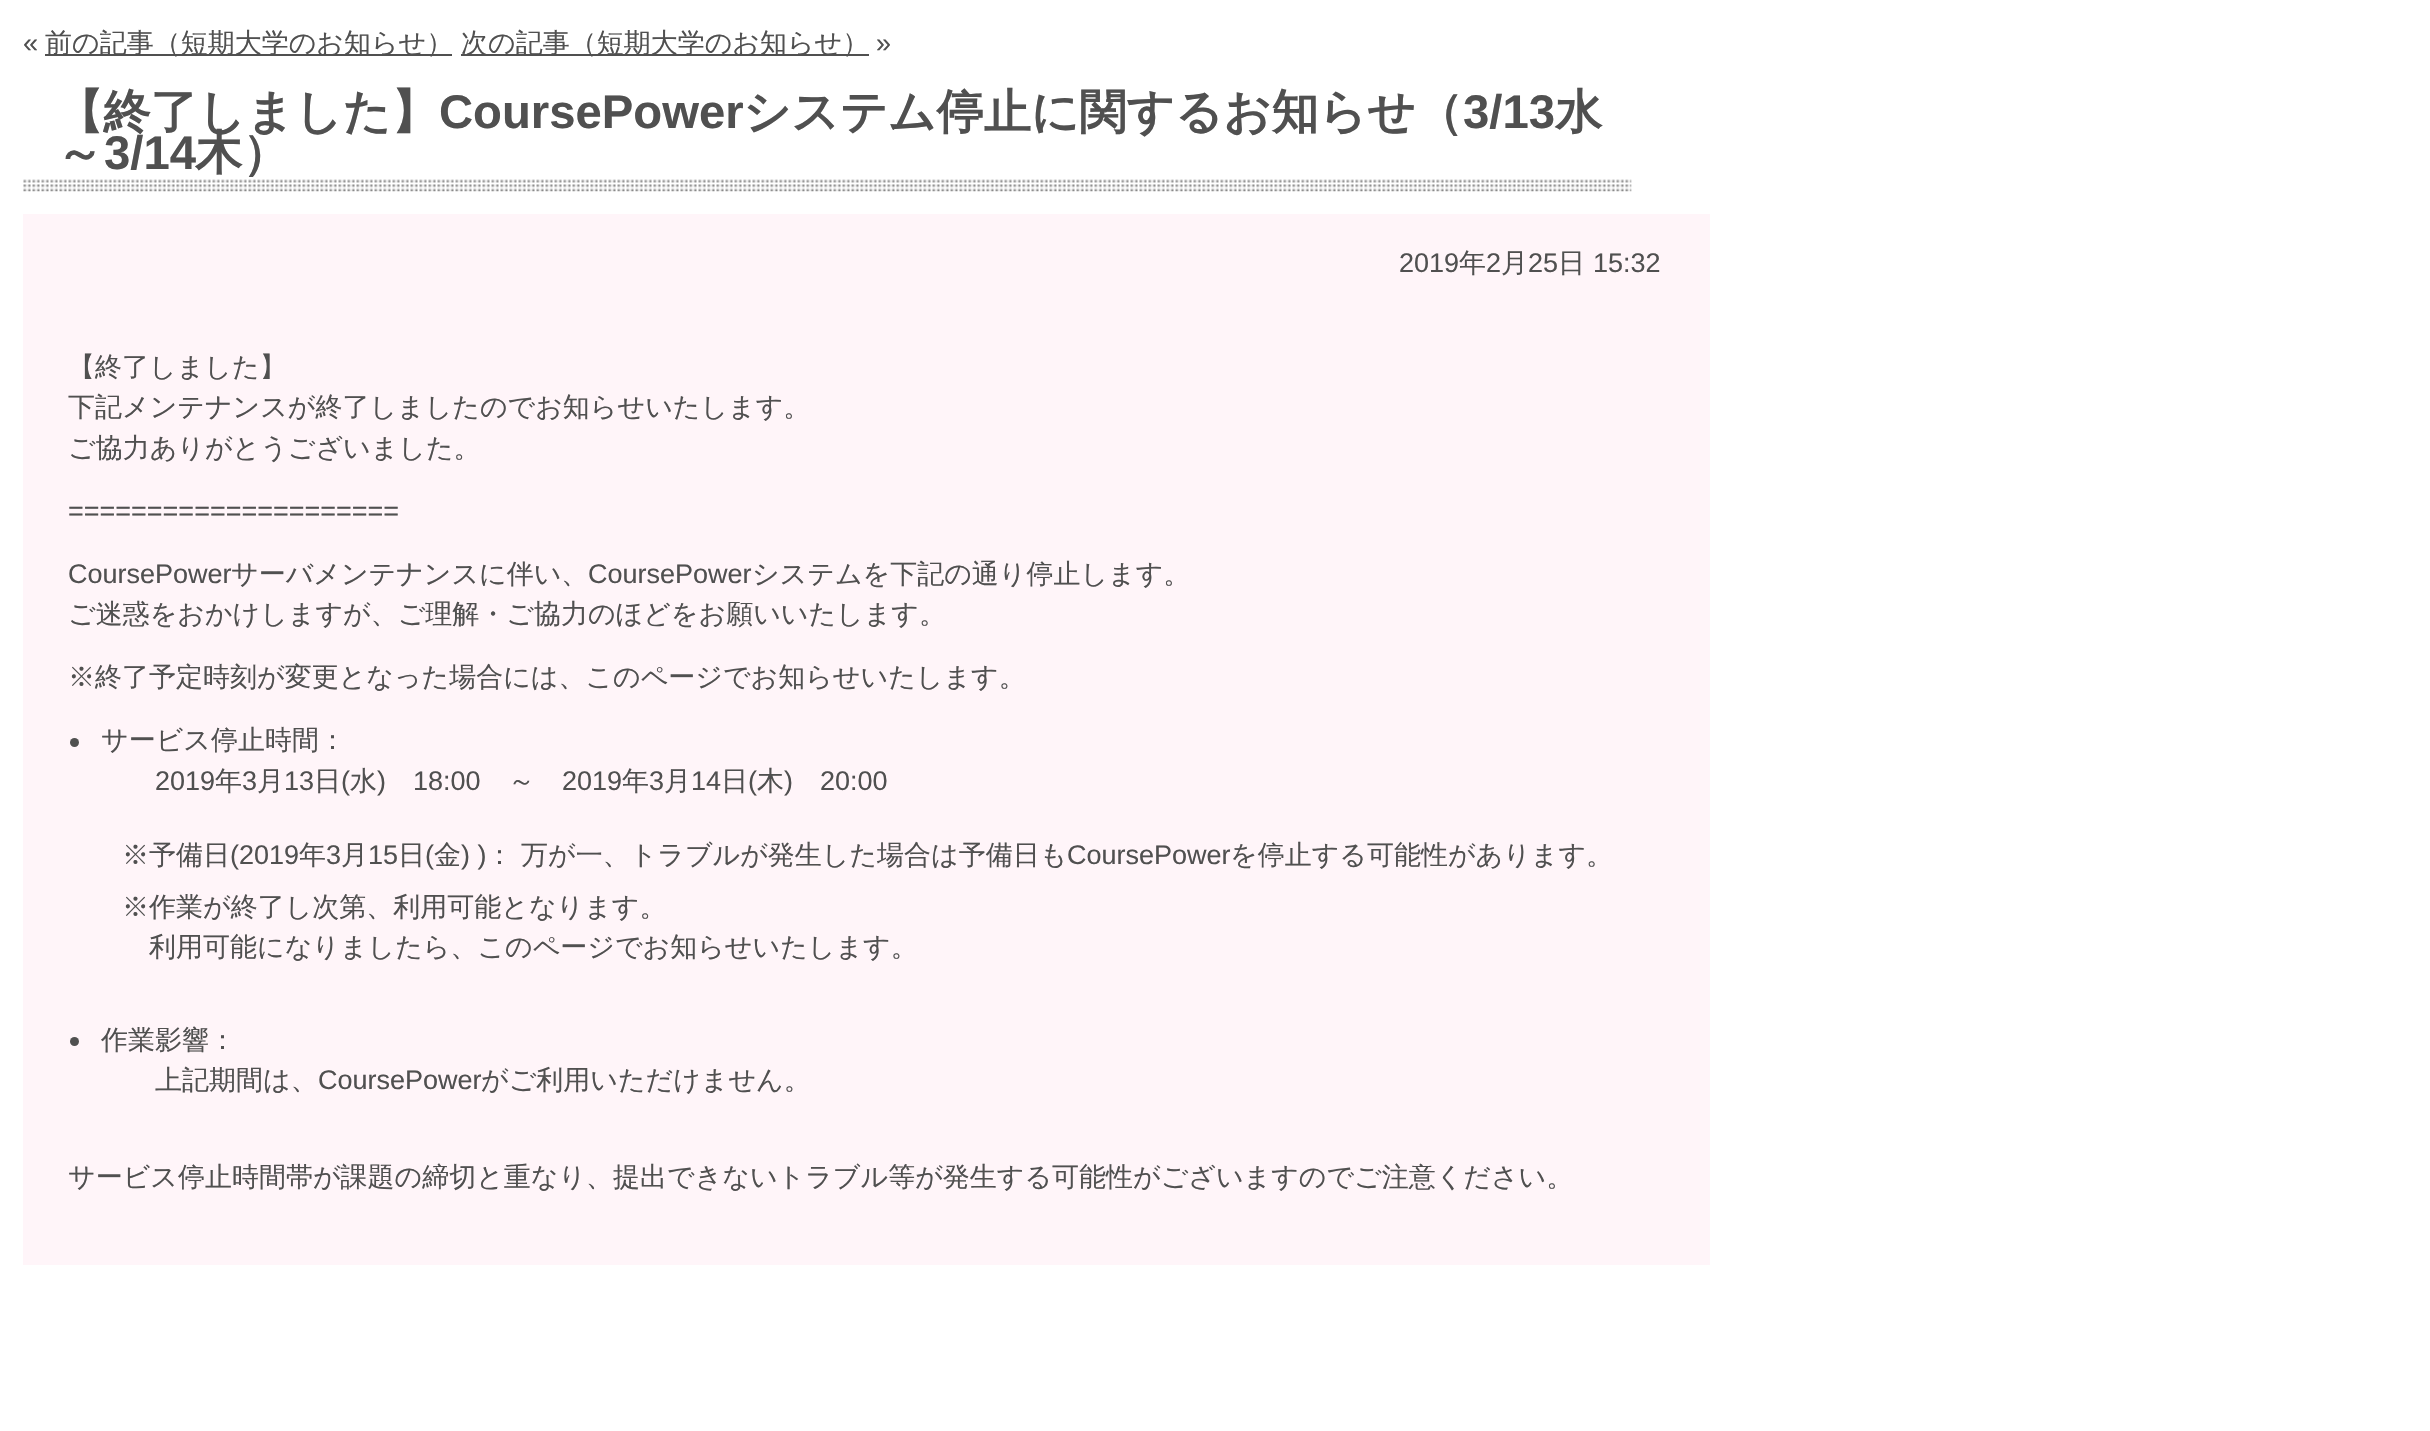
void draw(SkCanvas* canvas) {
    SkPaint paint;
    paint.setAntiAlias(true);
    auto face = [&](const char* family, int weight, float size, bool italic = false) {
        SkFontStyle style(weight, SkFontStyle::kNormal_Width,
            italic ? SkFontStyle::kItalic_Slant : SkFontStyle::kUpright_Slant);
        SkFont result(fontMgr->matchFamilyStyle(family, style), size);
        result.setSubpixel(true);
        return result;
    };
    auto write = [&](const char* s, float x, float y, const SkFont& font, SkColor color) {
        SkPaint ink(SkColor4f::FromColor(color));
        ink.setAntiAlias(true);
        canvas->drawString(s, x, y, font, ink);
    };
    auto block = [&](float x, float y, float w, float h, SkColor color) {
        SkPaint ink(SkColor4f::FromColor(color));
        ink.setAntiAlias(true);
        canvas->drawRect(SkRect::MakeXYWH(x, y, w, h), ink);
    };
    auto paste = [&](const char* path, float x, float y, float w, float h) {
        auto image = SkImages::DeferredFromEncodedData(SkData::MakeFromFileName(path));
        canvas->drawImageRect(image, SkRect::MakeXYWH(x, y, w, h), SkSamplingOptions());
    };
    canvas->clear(SK_ColorWHITE);
    auto kFont1 = face("Liberation Sans", 400, 27);
    write("«", 23, 52, kFont1, SkColorSetRGB(80, 80, 80));
    block(45, 54, 407, 2, SkColorSetRGB(80, 80, 80));
    auto kFont2 = face("WenQuanYi Zen Hei", 500, 27);
    write("前の記事（短期大学のお知らせ）", 45, 52, kFont2, SkColorSetRGB(80, 80, 80));
    block(461, 54, 408, 2, SkColorSetRGB(80, 80, 80));
    write("次の記事（短期大学のお知らせ）", 461, 52, kFont2, SkColorSetRGB(80, 80, 80));
    write("»", 876, 52, kFont1, SkColorSetRGB(80, 80, 80));
    paste("pic1.png", 23, 179, 1609, 13);
    auto kFont3 = face("WenQuanYi Zen Hei", 700, 47.25f);
    write("【終了しました】", 56, 128, kFont3, SkColorSetRGB(80, 80, 80));
    auto kFont4 = face("Liberation Sans", 700, 47.25f);
    write("CoursePower", 439, 128, kFont4, SkColorSetRGB(80, 80, 80));
    write("システム停止に関するお知らせ（", 743, 128, kFont3, SkColorSetRGB(80, 80, 80));
    write("3/13", 1463, 128, kFont4, SkColorSetRGB(80, 80, 80));
    write("水", 1555, 128, kFont3, SkColorSetRGB(80, 80, 80));
    write("～", 56, 169, kFont3, SkColorSetRGB(80, 80, 80));
    write("3/14", 104, 169, kFont4, SkColorSetRGB(80, 80, 80));
    write("木）", 195, 169, kFont3, SkColorSetRGB(80, 80, 80));
    block(23, 214, 1687, 1051, SkColorSetRGB(255, 245, 249));
    write("2019", 1399, 272, kFont1, SkColorSetRGB(80, 80, 80));
    write("年", 1459, 272, kFont2, SkColorSetRGB(80, 80, 80));
    write("2", 1486, 272, kFont1, SkColorSetRGB(80, 80, 80));
    write("月", 1501, 272, kFont2, SkColorSetRGB(80, 80, 80));
    write("25", 1528, 272, kFont1, SkColorSetRGB(80, 80, 80));
    write("日", 1558, 272, kFont2, SkColorSetRGB(80, 80, 80));
    write("15:32", 1593, 272, kFont1, SkColorSetRGB(80, 80, 80));
    write("【終了しました】", 68, 376, kFont2, SkColorSetRGB(80, 80, 80));
    write("下記メンテナンスが終了しましたのでお知らせいたします。", 68, 416, kFont2, SkColorSetRGB(80, 80, 80));
    write("ご協力ありがとうございました。", 68, 457, kFont2, SkColorSetRGB(80, 80, 80));
    write("=====================", 68, 520, kFont1, SkColorSetRGB(80, 80, 80));
    write("CoursePower", 68, 583, kFont1, SkColorSetRGB(80, 80, 80));
    write("サーバメンテナンスに伴い、", 231, 583, kFont2, SkColorSetRGB(80, 80, 80));
    write("CoursePower", 588, 583, kFont1, SkColorSetRGB(80, 80, 80));
    write("システムを下記の通り停止します。", 752, 583, kFont2, SkColorSetRGB(80, 80, 80));
    write("ご迷惑をおかけしますが、ご理解・ご協力のほどをお願いいたします。", 68, 623, kFont2, SkColorSetRGB(80, 80, 80));
    write("※終了予定時刻が変更となった場合には、このページでお知らせいたします。", 68, 686, kFont2, SkColorSetRGB(80, 80, 80));
    paint.setColor(SkColorSetRGB(80, 80, 80));
    canvas->drawCircle(74.5f, 742.5f, 4.5f, paint);
    write("サービス停止時間：", 101, 749, kFont2, SkColorSetRGB(80, 80, 80));
    write("2019", 155, 790, kFont1, SkColorSetRGB(80, 80, 80));
    write("年", 215, 790, kFont2, SkColorSetRGB(80, 80, 80));
    write("3", 242, 790, kFont1, SkColorSetRGB(80, 80, 80));
    write("月", 257, 790, kFont2, SkColorSetRGB(80, 80, 80));
    write("13", 284, 790, kFont1, SkColorSetRGB(80, 80, 80));
    write("日", 314, 790, kFont2, SkColorSetRGB(80, 80, 80));
    write("(", 341, 790, kFont1, SkColorSetRGB(80, 80, 80));
    write("水", 350, 790, kFont2, SkColorSetRGB(80, 80, 80));
    write(")", 377, 790, kFont1, SkColorSetRGB(80, 80, 80));
    write("18:00", 413, 790, kFont1, SkColorSetRGB(80, 80, 80));
    write("～", 508, 790, kFont2, SkColorSetRGB(80, 80, 80));
    write("2019", 562, 790, kFont1, SkColorSetRGB(80, 80, 80));
    write("年", 622, 790, kFont2, SkColorSetRGB(80, 80, 80));
    write("3", 649, 790, kFont1, SkColorSetRGB(80, 80, 80));
    write("月", 664, 790, kFont2, SkColorSetRGB(80, 80, 80));
    write("14", 691, 790, kFont1, SkColorSetRGB(80, 80, 80));
    write("日", 721, 790, kFont2, SkColorSetRGB(80, 80, 80));
    write("(", 748, 790, kFont1, SkColorSetRGB(80, 80, 80));
    write("木", 757, 790, kFont2, SkColorSetRGB(80, 80, 80));
    write(")", 784, 790, kFont1, SkColorSetRGB(80, 80, 80));
    write("20:00", 820, 790, kFont1, SkColorSetRGB(80, 80, 80));
    write("※予備日", 122, 864, kFont2, SkColorSetRGB(80, 80, 80));
    write("(2019", 230, 864, kFont1, SkColorSetRGB(80, 80, 80));
    write("年", 299, 864, kFont2, SkColorSetRGB(80, 80, 80));
    write("3", 326, 864, kFont1, SkColorSetRGB(80, 80, 80));
    write("月", 341, 864, kFont2, SkColorSetRGB(80, 80, 80));
    write("15", 368, 864, kFont1, SkColorSetRGB(80, 80, 80));
    write("日", 398, 864, kFont2, SkColorSetRGB(80, 80, 80));
    write("(", 425, 864, kFont1, SkColorSetRGB(80, 80, 80));
    write("金", 434, 864, kFont2, SkColorSetRGB(80, 80, 80));
    write(") )", 461, 864, kFont1, SkColorSetRGB(80, 80, 80));
    write("：", 486, 864, kFont2, SkColorSetRGB(80, 80, 80));
    write("万が一、トラブルが発生した場合は予備日も", 521, 864, kFont2, SkColorSetRGB(80, 80, 80));
    write("CoursePower", 1067, 864, kFont1, SkColorSetRGB(80, 80, 80));
    write("を停止する可能性があります。", 1230, 864, kFont2, SkColorSetRGB(80, 80, 80));
    write("※作業が終了し次第、利用可能となります。", 122, 916, kFont2, SkColorSetRGB(80, 80, 80));
    write("利用可能になりましたら、このページでお知らせいたします。", 149, 956, kFont2, SkColorSetRGB(80, 80, 80));
    canvas->drawCircle(74.5f, 1041.5f, 4.5f, paint);
    write("作業影響：", 101, 1049, kFont2, SkColorSetRGB(80, 80, 80));
    write("上記期間は、", 155, 1089, kFont2, SkColorSetRGB(80, 80, 80));
    write("CoursePower", 318, 1089, kFont1, SkColorSetRGB(80, 80, 80));
    write("がご利用いただけません。", 481, 1089, kFont2, SkColorSetRGB(80, 80, 80));
    write("サービス停止時間帯が課題の締切と重なり、提出できないトラブル等が発生する可能性がございますのでご注意ください。", 68, 1186, kFont2, SkColorSetRGB(80, 80, 80));
}
